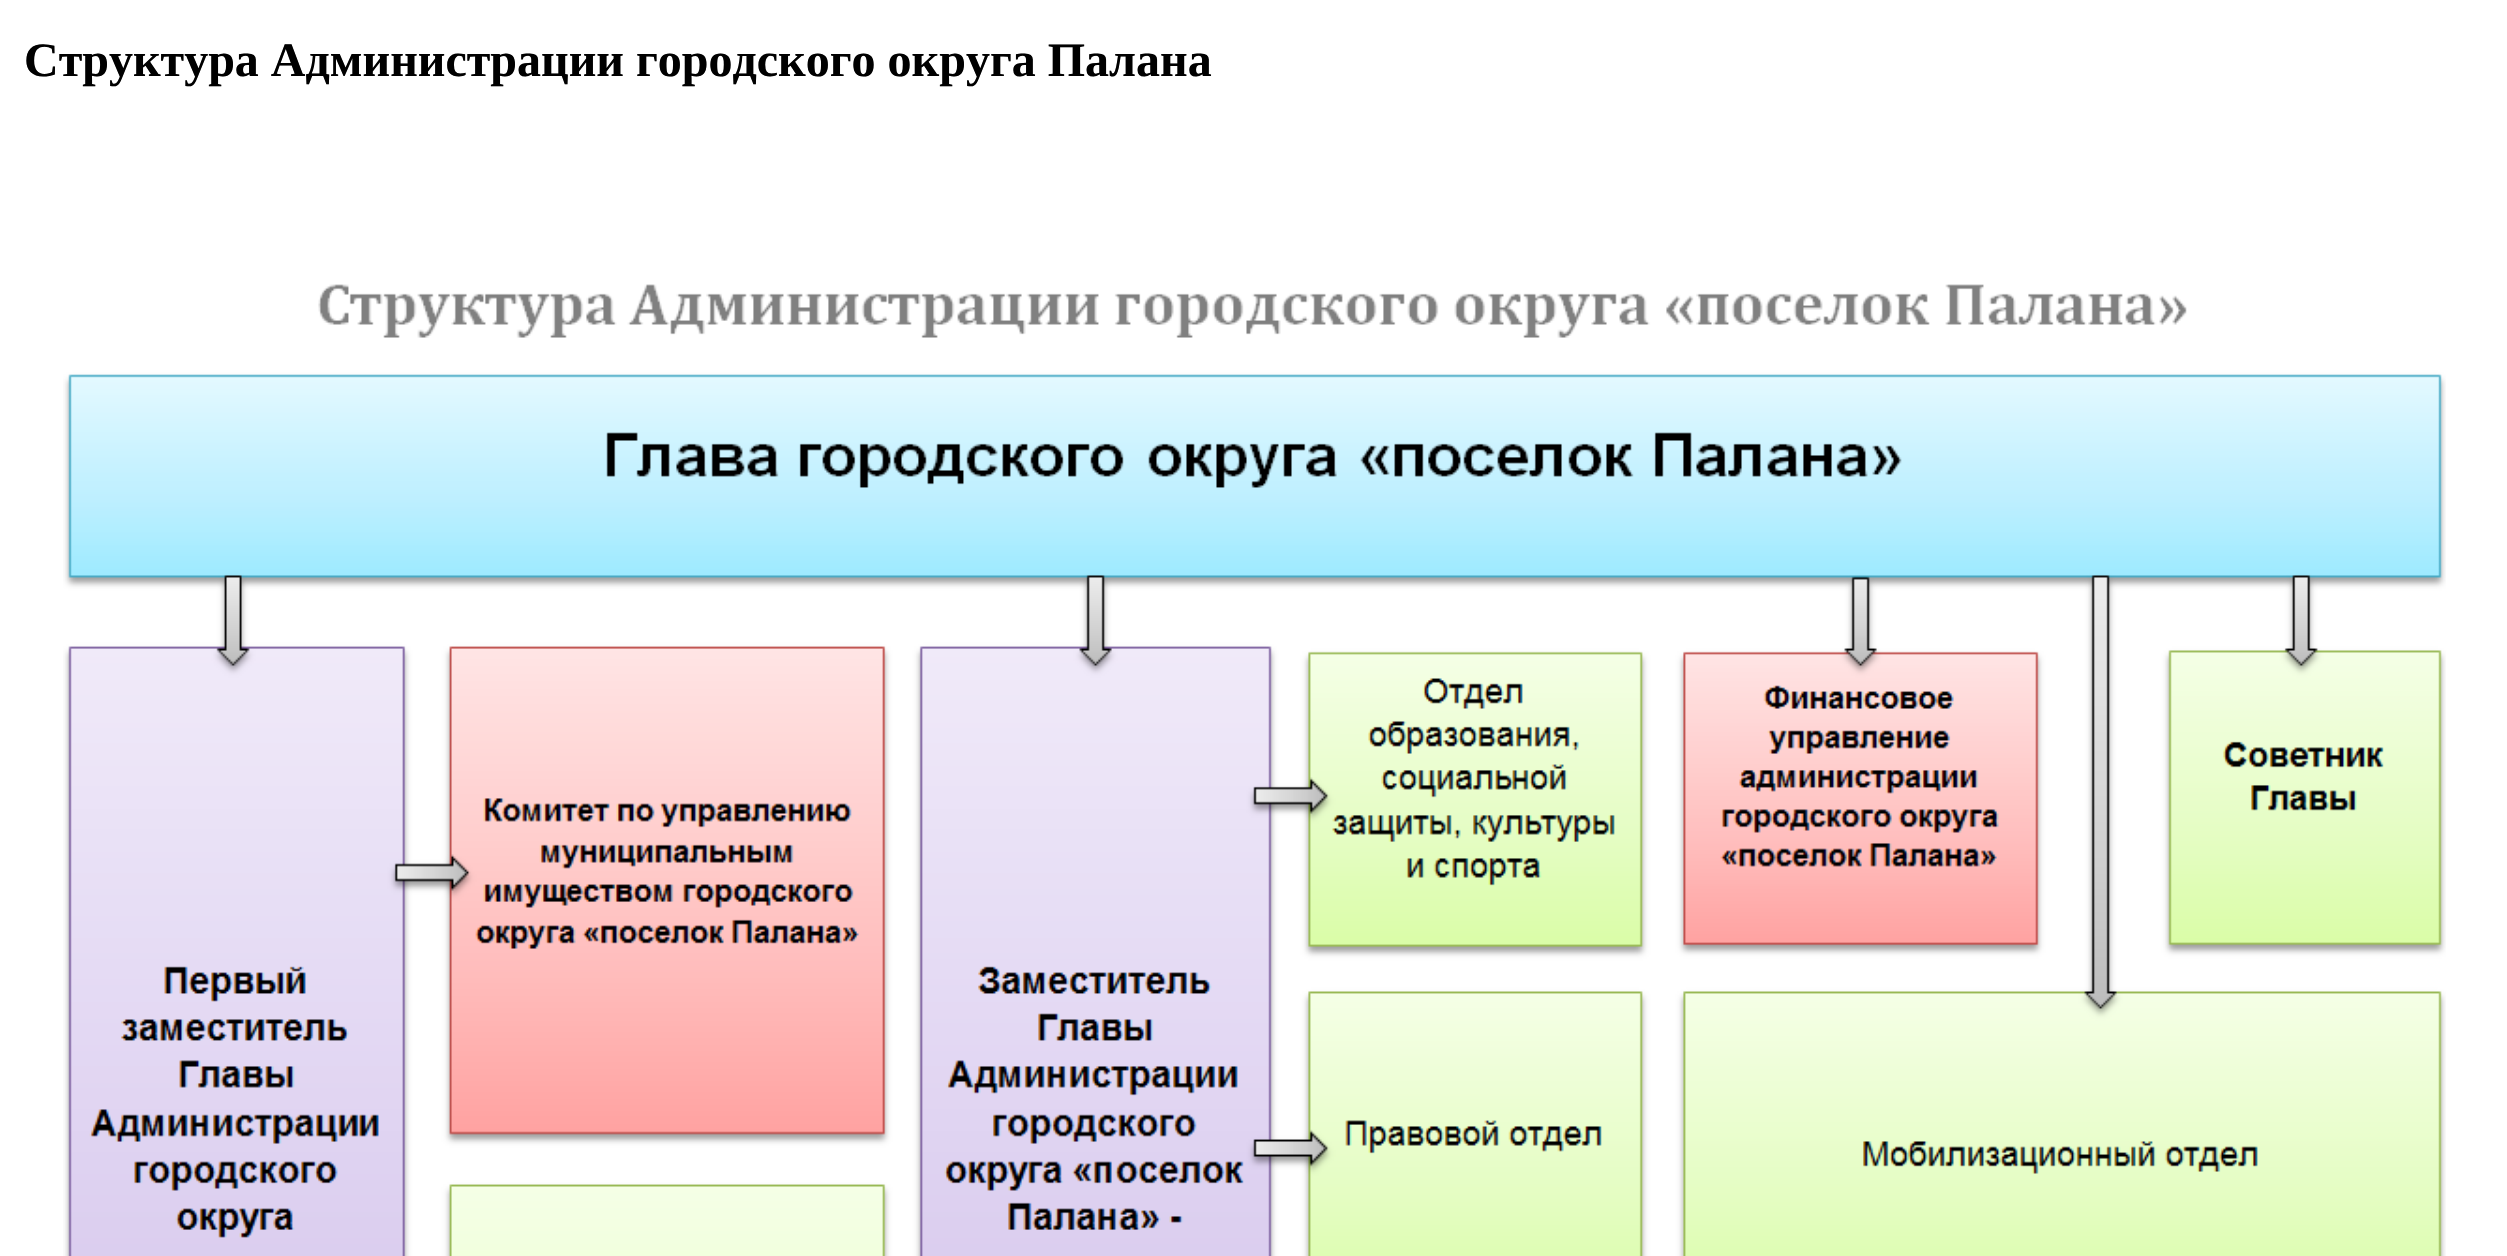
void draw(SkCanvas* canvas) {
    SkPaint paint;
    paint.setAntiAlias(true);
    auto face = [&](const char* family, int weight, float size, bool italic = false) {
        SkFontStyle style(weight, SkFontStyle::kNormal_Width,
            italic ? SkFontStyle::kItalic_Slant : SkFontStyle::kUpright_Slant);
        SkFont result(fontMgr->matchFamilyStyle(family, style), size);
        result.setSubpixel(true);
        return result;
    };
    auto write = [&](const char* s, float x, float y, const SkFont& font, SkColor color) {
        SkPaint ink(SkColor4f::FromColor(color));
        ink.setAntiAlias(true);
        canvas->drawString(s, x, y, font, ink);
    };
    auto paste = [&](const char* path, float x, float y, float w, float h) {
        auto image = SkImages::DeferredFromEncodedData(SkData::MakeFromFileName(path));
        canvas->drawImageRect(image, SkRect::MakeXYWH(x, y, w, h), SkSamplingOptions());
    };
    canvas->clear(SK_ColorWHITE);
    auto kFont1 = face("Liberation Serif", 700, 48);
    write("Структура Администрации городского округа Палана", 24, 76, kFont1, SK_ColorBLACK);
    paste("pic1.png", 63, 284, 2383, 972);
}
